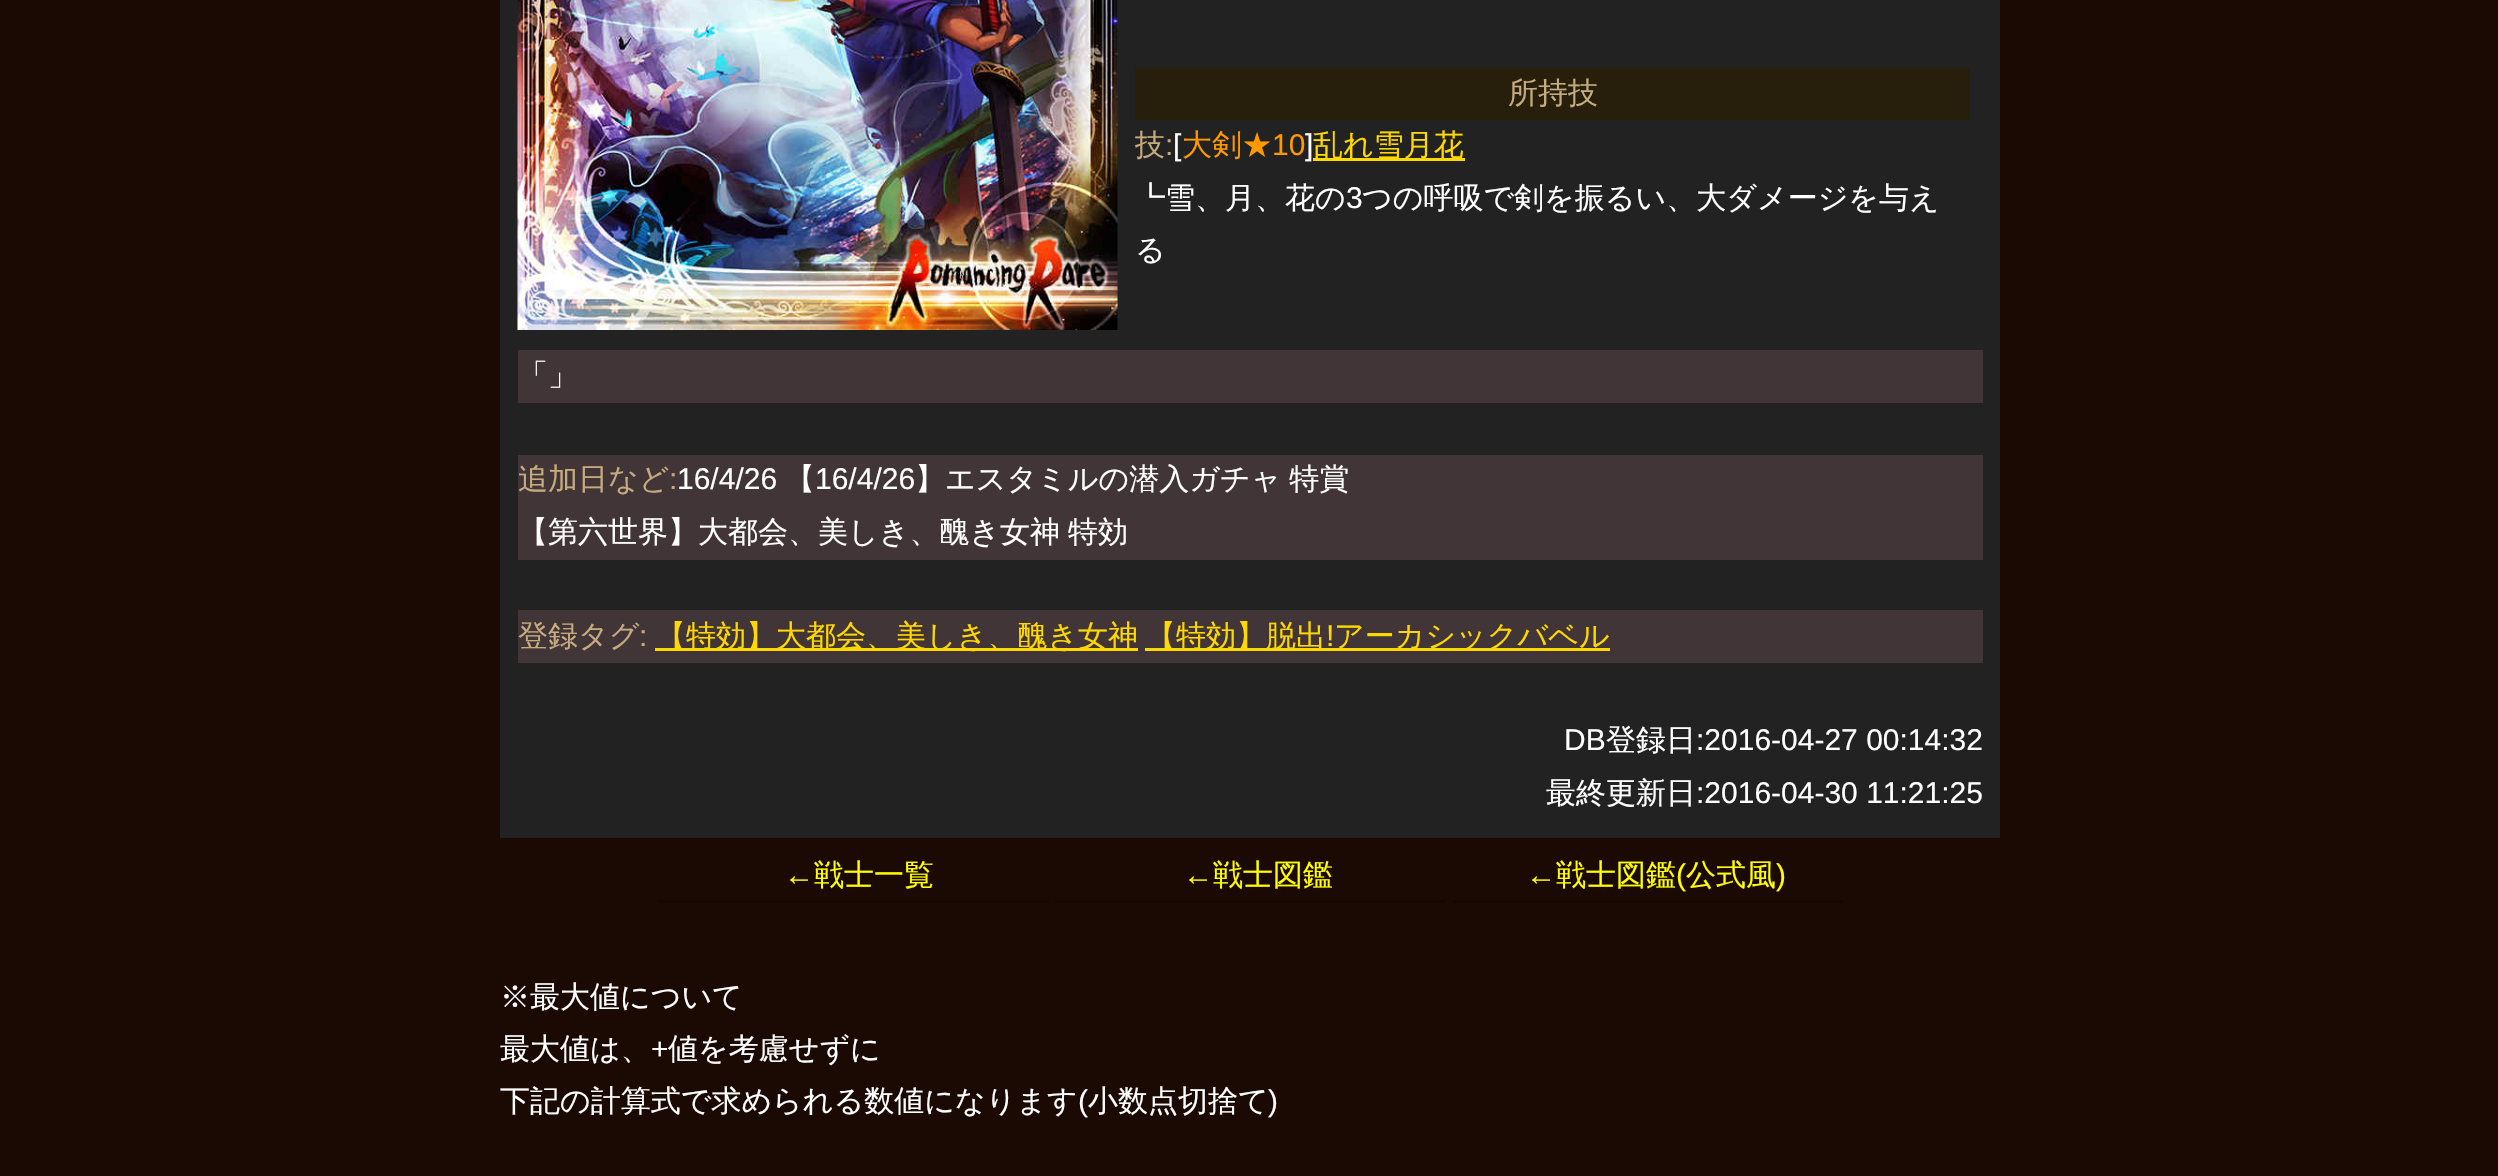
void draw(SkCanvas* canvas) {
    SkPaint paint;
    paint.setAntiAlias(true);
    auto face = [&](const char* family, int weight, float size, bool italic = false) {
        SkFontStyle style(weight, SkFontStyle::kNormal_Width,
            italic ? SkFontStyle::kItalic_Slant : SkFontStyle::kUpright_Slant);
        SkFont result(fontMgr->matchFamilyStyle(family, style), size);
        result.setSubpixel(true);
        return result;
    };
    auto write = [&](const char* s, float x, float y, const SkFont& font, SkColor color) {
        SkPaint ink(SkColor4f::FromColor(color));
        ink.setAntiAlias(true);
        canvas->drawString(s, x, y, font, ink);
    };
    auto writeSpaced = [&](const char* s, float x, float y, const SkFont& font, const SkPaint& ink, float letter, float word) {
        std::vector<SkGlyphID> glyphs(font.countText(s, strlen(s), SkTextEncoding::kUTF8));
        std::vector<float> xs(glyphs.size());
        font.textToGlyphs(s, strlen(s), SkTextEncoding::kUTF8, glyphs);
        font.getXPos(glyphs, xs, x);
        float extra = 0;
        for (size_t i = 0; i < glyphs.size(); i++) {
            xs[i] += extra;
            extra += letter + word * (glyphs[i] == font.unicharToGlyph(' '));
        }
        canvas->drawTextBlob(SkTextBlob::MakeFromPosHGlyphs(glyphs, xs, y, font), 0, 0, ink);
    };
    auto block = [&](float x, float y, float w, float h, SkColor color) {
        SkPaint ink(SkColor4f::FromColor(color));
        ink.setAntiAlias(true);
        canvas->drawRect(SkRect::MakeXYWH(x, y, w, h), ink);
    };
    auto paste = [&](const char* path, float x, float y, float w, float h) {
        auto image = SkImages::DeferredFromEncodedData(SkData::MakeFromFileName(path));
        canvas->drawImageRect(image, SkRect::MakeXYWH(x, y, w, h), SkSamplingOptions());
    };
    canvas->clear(SkColorSetRGB(27, 10, 4));
    block(500, 0, 1500, 838, SkColorSetRGB(34, 34, 34));
    paste("pic1.png", 517, 0, 601, 330);
    block(1135, 68, 835, 52, SkColorSetRGB(39, 31, 11));
    auto kFont1 = face("WenQuanYi Zen Hei", 500, 30);
    write("所持技", 1508, 103, kFont1, SkColorSetRGB(197, 171, 126));
    write("技", 1135, 155, kFont1, SkColorSetRGB(197, 171, 126));
    auto kFont2 = face("Liberation Sans", 400, 30);
    write(":", 1165, 155, kFont2, SkColorSetRGB(197, 171, 126));
    write("[", 1173, 155, kFont2, SK_ColorWHITE);
    write("大剣★", 1182, 155, kFont1, SkColorSetRGB(255, 153, 0));
    write("10", 1272, 155, kFont2, SkColorSetRGB(255, 153, 0));
    write("]", 1305, 155, kFont2, SK_ColorWHITE);
    block(1313, 158, 152, 3, SkColorSetRGB(255, 216, 0));
    write("乱れ雪月花", 1313, 155, kFont1, SkColorSetRGB(255, 216, 0));
    write("┗雪、月、花の", 1135, 208, kFont1, SK_ColorWHITE);
    write("3", 1346, 208, kFont2, SK_ColorWHITE);
    write("つの呼吸で剣を振るい、大ダメージを与え", 1362, 208, kFont1, SK_ColorWHITE);
    write("る", 1135, 260, kFont1, SK_ColorWHITE);
    block(518, 350, 1465, 53, SkColorSetRGB(66, 53, 56));
    write("「」", 518, 385, kFont1, SK_ColorWHITE);
    block(518, 455, 1465, 105, SkColorSetRGB(66, 53, 56));
    write("追加日など", 518, 489, kFont1, SkColorSetRGB(197, 171, 126));
    write(":", 669, 489, kFont2, SkColorSetRGB(197, 171, 126));
    write("16/4/26", 677, 489, kFont2, SK_ColorWHITE);
    write("【", 785, 489, kFont1, SK_ColorWHITE);
    write("16/4/26", 815, 489, kFont2, SK_ColorWHITE);
    paint.setColor(SK_ColorWHITE);
    writeSpaced("】エスタミルの潜入ガチャ 特賞", 915, 489, kFont1, paint, 0, -1);
    writeSpaced("【第六世界】大都会、美しき、醜き女神 特効", 518, 542, kFont1, paint, 0, -1);
    block(518, 610, 1465, 53, SkColorSetRGB(66, 53, 56));
    write("登録タグ", 518, 646, kFont1, SkColorSetRGB(197, 171, 126));
    write(":", 639, 646, kFont2, SkColorSetRGB(197, 171, 126));
    block(655, 648, 483, 3, SkColorSetRGB(255, 216, 0));
    write("【特効】大都会、美しき、醜き女神", 656, 646, kFont1, SkColorSetRGB(255, 216, 0));
    block(1145, 648, 465, 3, SkColorSetRGB(255, 216, 0));
    write("【特効】脱出", 1146, 646, kFont1, SkColorSetRGB(255, 216, 0));
    write("!", 1326, 646, kFont2, SkColorSetRGB(255, 216, 0));
    write("アーカシックバベル", 1334, 646, kFont1, SkColorSetRGB(255, 216, 0));
    write("DB", 1564, 750, kFont2, SK_ColorWHITE);
    write("登録日", 1606, 750, kFont1, SK_ColorWHITE);
    write(":2016-04-27 00:14:32", 1696, 750, kFont2, SK_ColorWHITE);
    write("最終更新日", 1546, 803, kFont1, SK_ColorWHITE);
    write(":2016-04-30 11:21:25", 1696, 803, kFont2, SK_ColorWHITE);
    block(658, 900, 390, 3, SkColorSetRGB(20, 8, 3));
    write("←", 784, 885, kFont2, SkColorSetRGB(255, 255, 0));
    write("戦士一覧", 814, 885, kFont1, SkColorSetRGB(255, 255, 0));
    block(1055, 900, 390, 3, SkColorSetRGB(20, 8, 3));
    write("←", 1183, 885, kFont2, SkColorSetRGB(255, 255, 0));
    write("戦士図鑑", 1213, 885, kFont1, SkColorSetRGB(255, 255, 0));
    block(1453, 900, 390, 3, SkColorSetRGB(20, 8, 3));
    write("←", 1526, 885, kFont2, SkColorSetRGB(255, 255, 0));
    write("戦士図鑑", 1556, 885, kFont1, SkColorSetRGB(255, 255, 0));
    write("(", 1676, 885, kFont2, SkColorSetRGB(255, 255, 0));
    write("公式風", 1686, 885, kFont1, SkColorSetRGB(255, 255, 0));
    write(")", 1776, 885, kFont2, SkColorSetRGB(255, 255, 0));
    write("※最大値について", 500, 1007, kFont1, SK_ColorWHITE);
    write("最大値は、", 500, 1059, kFont1, SK_ColorWHITE);
    write("+", 651, 1059, kFont2, SK_ColorWHITE);
    write("値を考慮せずに", 668, 1059, kFont1, SK_ColorWHITE);
    write("下記の計算式で求められる数値になります", 500, 1111, kFont1, SK_ColorWHITE);
    write("(", 1078, 1111, kFont2, SK_ColorWHITE);
    write("小数点切捨て", 1088, 1111, kFont1, SK_ColorWHITE);
    write(")", 1268, 1111, kFont2, SK_ColorWHITE);
}
